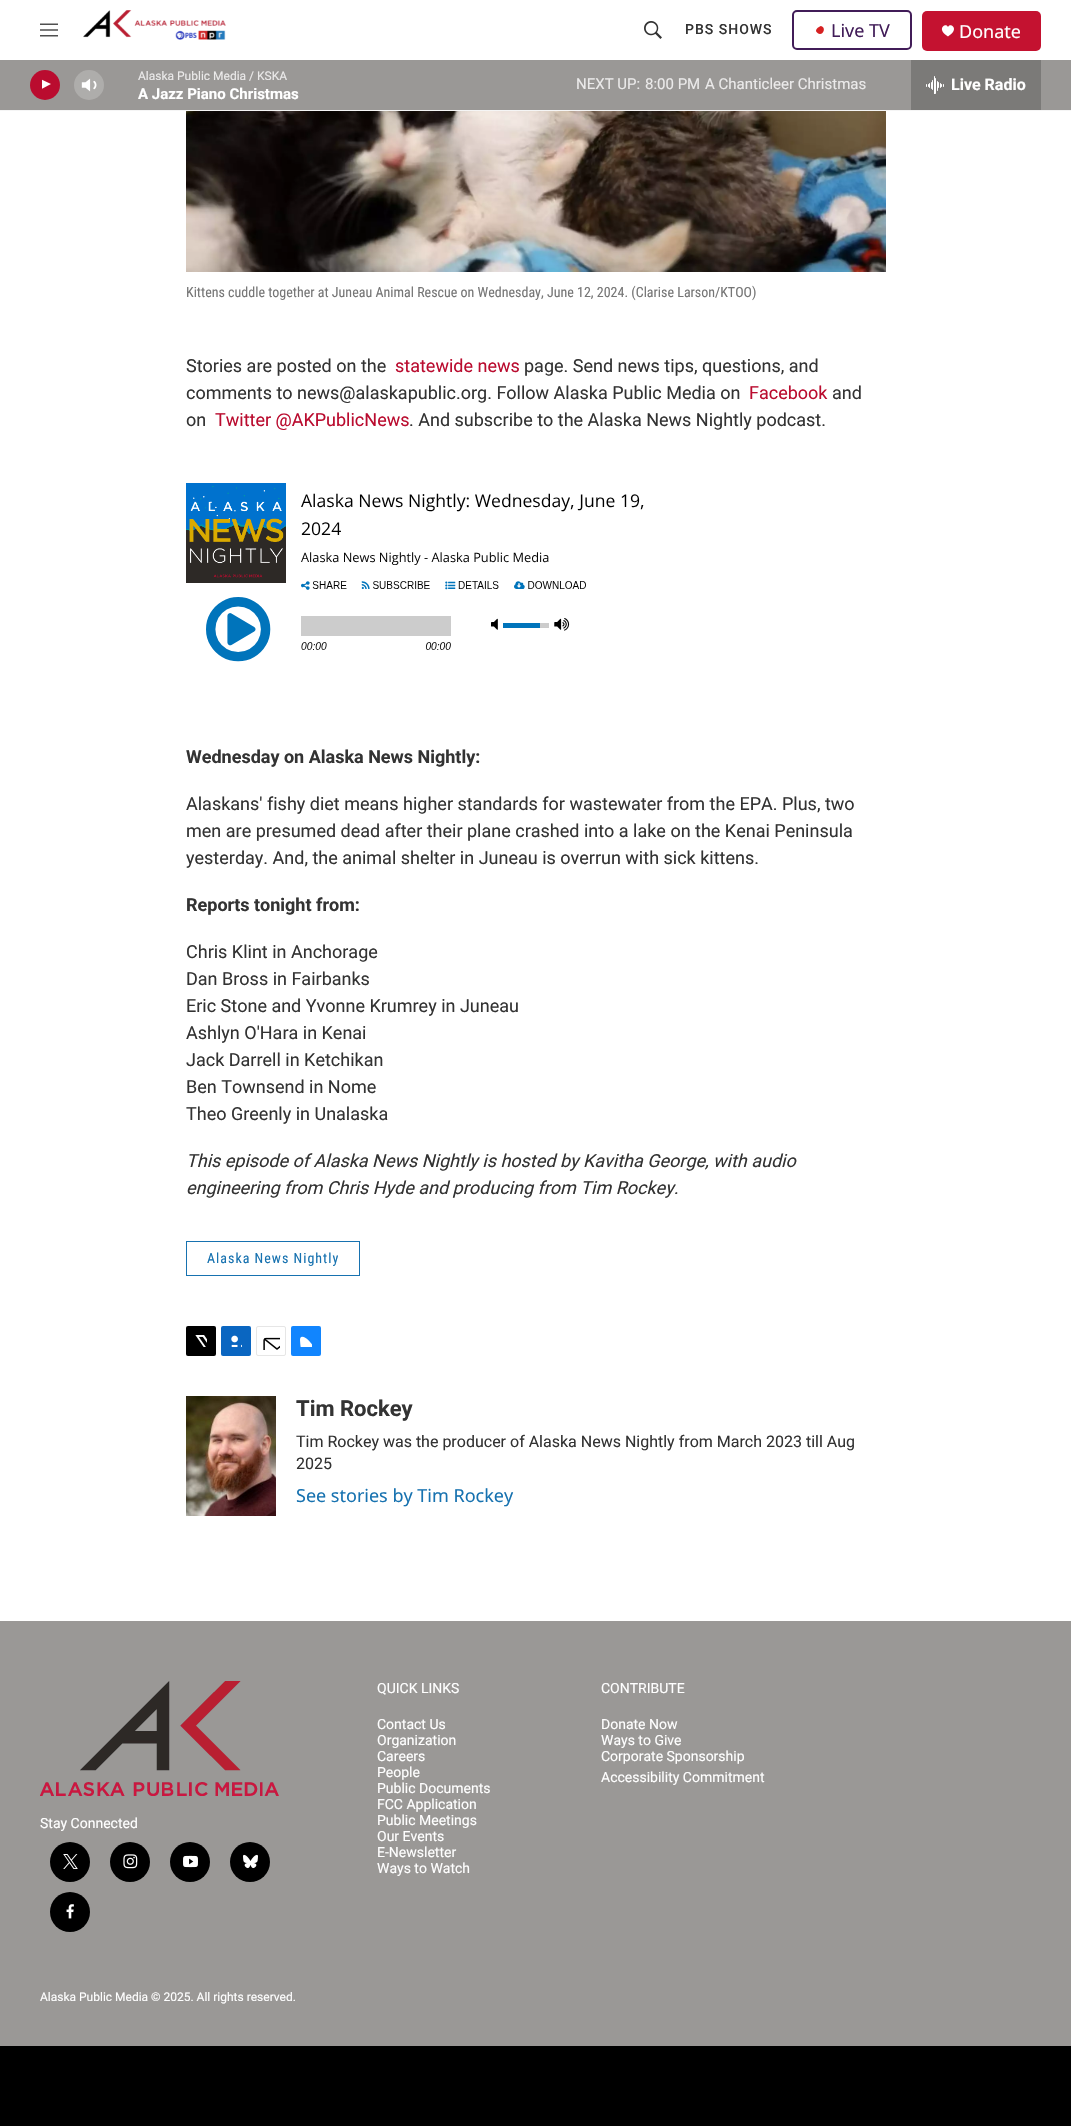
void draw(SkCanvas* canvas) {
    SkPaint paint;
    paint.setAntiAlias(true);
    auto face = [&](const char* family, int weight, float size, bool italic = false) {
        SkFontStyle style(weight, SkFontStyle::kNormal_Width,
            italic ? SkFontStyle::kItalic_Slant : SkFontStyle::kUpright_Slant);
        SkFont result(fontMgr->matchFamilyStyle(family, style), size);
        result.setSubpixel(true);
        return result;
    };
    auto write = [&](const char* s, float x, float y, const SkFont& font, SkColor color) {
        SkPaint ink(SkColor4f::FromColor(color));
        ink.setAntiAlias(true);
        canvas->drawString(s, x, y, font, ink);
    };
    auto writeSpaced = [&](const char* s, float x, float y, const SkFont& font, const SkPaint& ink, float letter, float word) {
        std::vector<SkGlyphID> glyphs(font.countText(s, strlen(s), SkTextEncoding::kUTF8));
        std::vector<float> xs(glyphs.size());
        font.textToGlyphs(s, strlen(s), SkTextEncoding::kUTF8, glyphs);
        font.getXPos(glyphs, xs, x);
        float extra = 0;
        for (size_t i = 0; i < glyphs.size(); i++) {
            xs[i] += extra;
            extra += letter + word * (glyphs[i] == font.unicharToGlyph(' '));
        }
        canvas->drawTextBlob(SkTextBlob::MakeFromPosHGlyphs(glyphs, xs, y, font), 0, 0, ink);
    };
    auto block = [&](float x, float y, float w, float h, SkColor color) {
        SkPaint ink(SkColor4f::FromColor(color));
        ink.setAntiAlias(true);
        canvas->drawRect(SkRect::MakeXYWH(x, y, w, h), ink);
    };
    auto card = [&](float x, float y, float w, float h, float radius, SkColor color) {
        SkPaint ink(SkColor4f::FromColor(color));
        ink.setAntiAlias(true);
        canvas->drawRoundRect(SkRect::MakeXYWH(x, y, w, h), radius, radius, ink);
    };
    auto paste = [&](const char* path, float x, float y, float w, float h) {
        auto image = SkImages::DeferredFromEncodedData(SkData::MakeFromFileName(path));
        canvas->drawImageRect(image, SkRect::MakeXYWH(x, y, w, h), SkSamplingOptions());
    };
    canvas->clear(SK_ColorWHITE);
    block(0, 110, 1071, 1, SkColorSetRGB(245, 245, 245));
    paste("pic1.png", 40, 23, 18, 14);
    paste("pic2.png", 83, 10, 143, 30);
    paste("pic3.png", 644, 21, 18, 18);
    auto kFont1 = face("Roboto", 500, 14);
    paint.setColor(SkColorSetRGB(51, 51, 51));
    writeSpaced("PBS SHOWS", 685, 34, kFont1, paint, 1, 0);
    paint.setStyle(SkPaint::kStroke_Style);
    paint.setStrokeWidth(2);
    paint.setColor(SkColorSetRGB(65, 28, 88));
    canvas->drawRoundRect(SkRect::MakeXYWH(793, 11, 118, 38), 4, 4, paint);
    paint.setStyle(SkPaint::kFill_Style);
    paint.setColor(SkColorSetRGB(214, 32, 33));
    canvas->drawPath(SkPathBuilder().moveTo(821, 26).cubicTo(827, 27.5f, 822.5f, 37, 817.5f, 33).cubicTo(817, 32.5f, 816, 31.5f, 816, 31).cubicTo(816, 28.5f, 819, 26.5f, 821, 26).close().detach(), paint);
    auto kFont2 = face("Noto Sans", 400, 18);
    write("Live TV", 831, 37, kFont2, SkColorSetRGB(65, 28, 88));
    card(922, 11, 119, 40, 5, SkColorSetRGB(196, 18, 48));
    paint.setColor(SK_ColorWHITE);
    canvas->drawPath(SkPathBuilder().moveTo(948, 27).cubicTo(946, 22, 935.5f, 29, 948, 36.5f).cubicTo(960.5f, 29, 950, 22, 948, 27).close().detach(), paint);
    write("Donate", 959, 38, kFont2, SK_ColorWHITE);
    block(0, 60, 1071, 50, SkColorSetRGB(154, 152, 150));
    paint.setColor(SkColorSetRGB(186, 12, 47));
    canvas->drawCircle(45, 85, 15, paint);
    canvas->save();
    canvas->clipRect(SkRect::MakeXYWH(42, 78, 12, 15));
    paint.setColor(SK_ColorWHITE);
    canvas->drawPath(SkPathBuilder().moveTo(41.5f, 79.5f).lineTo(51, 84).lineTo(41.5f, 89).close().detach(), paint);
    canvas->restore();
    paste("pic4.png", 81, 78, 16, 14);
    paint.setColor(SkColorSetARGB(51, 255, 255, 255));
    canvas->drawCircle(89, 85, 15, paint);
    auto kFont3 = face("Roboto", 400, 12);
    write("Alaska Public Media / KSKA", 138, 80, kFont3, SkColorSetRGB(235, 234, 234));
    auto kFont4 = face("Roboto", 700, 15);
    write("A Jazz Piano Christmas", 138, 99, kFont4, SK_ColorWHITE);
    auto kFont5 = face("Roboto", 400, 15);
    write("NEXT UP:", 576, 89, kFont5, SkColorSetRGB(235, 234, 234));
    write("8:00 PM", 645, 89, kFont5, SkColorSetRGB(235, 234, 234));
    write("A Chanticleer Christmas", 705, 89, kFont5, SkColorSetRGB(235, 234, 234));
    block(911, 60, 130, 50, SkColorSetRGB(123, 122, 120));
    paste("pic5.png", 926, 76, 18, 18);
    auto kFont6 = face("Roboto", 700, 16);
    write("Live Radio", 951, 90, kFont6, SK_ColorWHITE);
    paste("pic6.png", 186, 111, 700, 161);
    auto kFont7 = face("Roboto Condensed", 400, 14);
    write("Kittens cuddle together at Juneau Animal Rescue on Wednesday, June 12, 2024. (Clarise Larson/KTOO)", 186, 297, kFont7, SkColorSetRGB(118, 118, 118));
    auto kFont8 = face("Roboto", 400, 18);
    write("Stories are posted on the", 186, 372, kFont8, SkColorSetRGB(51, 51, 51));
    write("statewide news", 395, 372, kFont8, SkColorSetRGB(186, 12, 47));
    write("page. Send news tips, questions, and", 524, 372, kFont8, SkColorSetRGB(51, 51, 51));
    write("comments to news@alaskapublic.org. Follow Alaska Public Media on", 186, 399, kFont8, SkColorSetRGB(51, 51, 51));
    write("Facebook", 749, 399, kFont8, SkColorSetRGB(186, 12, 47));
    write("and", 832, 399, kFont8, SkColorSetRGB(51, 51, 51));
    write("on", 186, 426, kFont8, SkColorSetRGB(51, 51, 51));
    write("Twitter @AKPublicNews", 215, 426, kFont8, SkColorSetRGB(186, 12, 47));
    write(". And subscribe to the Alaska News Nightly podcast.", 409, 426, kFont8, SkColorSetRGB(51, 51, 51));
    paste("pic7.png", 186, 483, 458, 179);
    auto kFont9 = face("Roboto", 700, 18);
    write("Wednesday on Alaska News Nightly:", 186, 763, kFont9, SkColorSetRGB(51, 51, 51));
    write("Alaskans' fishy diet means higher standards for wastewater from the EPA. Plus, two", 186, 810, kFont8, SkColorSetRGB(51, 51, 51));
    write("men are presumed dead after their plane crashed into a lake on the Kenai Peninsula", 186, 837, kFont8, SkColorSetRGB(51, 51, 51));
    write("yesterday. And, the animal shelter in Juneau is overrun with sick kittens.", 186, 864, kFont8, SkColorSetRGB(51, 51, 51));
    write("Reports tonight from:", 186, 911, kFont9, SkColorSetRGB(51, 51, 51));
    write("Chris Klint in Anchorage", 186, 958, kFont8, SkColorSetRGB(51, 51, 51));
    write("Dan Bross in Fairbanks", 186, 985, kFont8, SkColorSetRGB(51, 51, 51));
    write("Eric Stone and Yvonne Krumrey in Juneau", 186, 1012, kFont8, SkColorSetRGB(51, 51, 51));
    write("Ashlyn O'Hara in Kenai", 186, 1039, kFont8, SkColorSetRGB(51, 51, 51));
    write("Jack Darrell in Ketchikan", 186, 1066, kFont8, SkColorSetRGB(51, 51, 51));
    write("Ben Townsend in Nome", 186, 1093, kFont8, SkColorSetRGB(51, 51, 51));
    write("Theo Greenly in Unalaska", 186, 1120, kFont8, SkColorSetRGB(51, 51, 51));
    auto kFont10 = face("Roboto", 400, 18, true);
    write("This episode of Alaska News Nightly is hosted by Kavitha George, with audio", 186, 1167, kFont10, SkColorSetRGB(51, 51, 51));
    write("engineering from Chris Hyde and producing from Tim Rockey.", 186, 1194, kFont10, SkColorSetRGB(51, 51, 51));
    paint.setStyle(SkPaint::kStroke_Style);
    paint.setStrokeWidth(1);
    paint.setColor(SkColorSetRGB(23, 114, 176));
    canvas->drawRect(SkRect::MakeXYWH(186.5f, 1241.5f, 173, 34), paint);
    paint.setStyle(SkPaint::kFill_Style);
    writeSpaced("Alaska News Nightly", 207, 1263, kFont7, paint, 1, 0);
    card(186, 1326, 30, 30, 2, SK_ColorBLACK);
    paste("pic8.png", 195, 1335, 12, 12);
    card(221, 1326, 30, 30, 2, SkColorSetRGB(10, 102, 193));
    paste("pic9.png", 231, 1335, 11, 12);
    paint.setStyle(SkPaint::kStroke_Style);
    paint.setColor(SkColorSetRGB(230, 230, 230));
    canvas->drawRoundRect(SkRect::MakeXYWH(256.5f, 1326.5f, 29, 29), 1.5f, 1.5f, paint);
    paste("pic10.png", 263, 1337, 17, 13);
    card(291, 1326, 30, 30, 2, SkColorSetRGB(17, 133, 254));
    paste("pic11.png", 300, 1336, 12, 11);
    paste("pic12.png", 186, 1396, 90, 120);
    auto kFont11 = face("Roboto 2", 700, 22);
    write("Tim Rockey", 296, 1416, kFont11, SkColorSetRGB(51, 51, 51));
    auto kFont12 = face("Roboto", 400, 16);
    write("Tim Rockey was the producer of Alaska News Nightly from March 2023 till Aug", 296, 1447, kFont12, SkColorSetRGB(51, 51, 51));
    write("2025", 296, 1469, kFont12, SkColorSetRGB(51, 51, 51));
    write("See stories by Tim Rockey", 296, 1502, kFont2, SkColorSetRGB(23, 114, 176));
    block(0, 1621, 1071, 425, SkColorSetRGB(154, 152, 150));
    auto kFont13 = face("Roboto", 400, 14);
    write("QUICK LINKS", 377, 1693, kFont13, SK_ColorWHITE);
    write("Contact Us", 377, 1729, kFont13, SK_ColorWHITE);
    write("Organization", 377, 1745, kFont13, SK_ColorWHITE);
    write("Careers", 377, 1761, kFont13, SK_ColorWHITE);
    write("People", 377, 1777, kFont13, SK_ColorWHITE);
    write("Public Documents", 377, 1793, kFont13, SK_ColorWHITE);
    write("FCC Application", 377, 1809, kFont13, SK_ColorWHITE);
    write("Public Meetings", 377, 1825, kFont13, SK_ColorWHITE);
    write("Our Events", 377, 1841, kFont13, SK_ColorWHITE);
    write("E-Newsletter", 377, 1857, kFont13, SK_ColorWHITE);
    write("Ways to Watch", 377, 1873, kFont13, SK_ColorWHITE);
    write("CONTRIBUTE", 601, 1693, kFont13, SK_ColorWHITE);
    write("Donate Now", 601, 1729, kFont13, SK_ColorWHITE);
    write("Ways to Give", 601, 1745, kFont13, SK_ColorWHITE);
    write("Corporate Sponsorship", 601, 1761, kFont13, SK_ColorWHITE);
    write("Accessibility Commitment", 601, 1782, kFont13, SK_ColorWHITE);
    paste("pic13.png", 40, 1681, 239, 115);
    write("Stay Connected", 40, 1828, kFont13, SK_ColorWHITE);
    paint.setStyle(SkPaint::kFill_Style);
    paint.setColor(SK_ColorBLACK);
    canvas->drawCircle(70, 1862, 20, paint);
    paste("pic14.png", 63, 1854, 15, 15);
    canvas->drawCircle(130, 1862, 20, paint);
    paste("pic15.png", 123, 1854, 15, 15);
    canvas->drawCircle(190, 1862, 20, paint);
    paste("pic16.png", 183, 1855, 15, 13);
    canvas->drawCircle(250, 1862, 20, paint);
    paste("pic17.png", 243, 1854, 15, 15);
    canvas->drawCircle(70, 1912, 20, paint);
    paste("pic18.png", 66, 1904, 8, 15);
    write("Alaska Public Media © 2025. All rights reserved.", 40, 2001, kFont3, SK_ColorWHITE);
    block(0, 2046, 1071, 80, SK_ColorBLACK);
}
